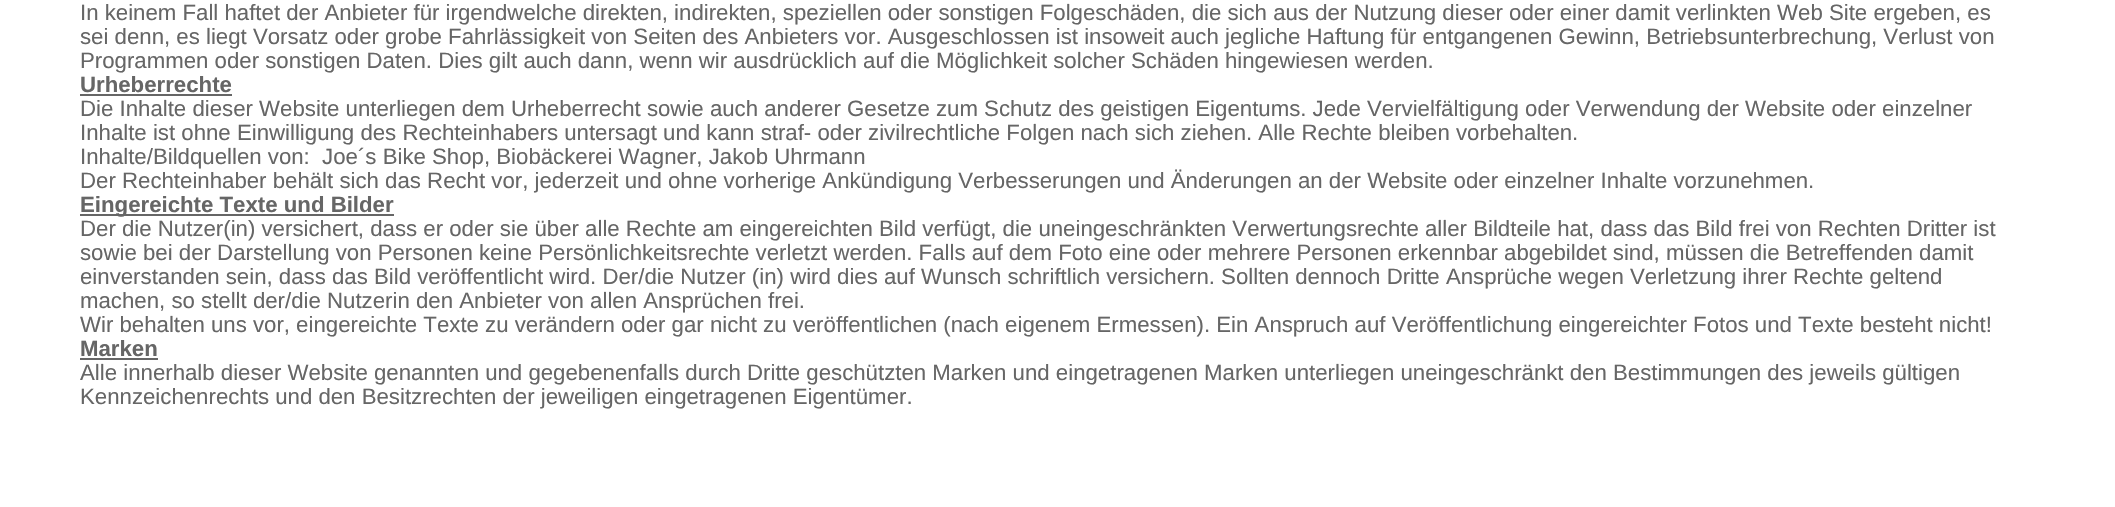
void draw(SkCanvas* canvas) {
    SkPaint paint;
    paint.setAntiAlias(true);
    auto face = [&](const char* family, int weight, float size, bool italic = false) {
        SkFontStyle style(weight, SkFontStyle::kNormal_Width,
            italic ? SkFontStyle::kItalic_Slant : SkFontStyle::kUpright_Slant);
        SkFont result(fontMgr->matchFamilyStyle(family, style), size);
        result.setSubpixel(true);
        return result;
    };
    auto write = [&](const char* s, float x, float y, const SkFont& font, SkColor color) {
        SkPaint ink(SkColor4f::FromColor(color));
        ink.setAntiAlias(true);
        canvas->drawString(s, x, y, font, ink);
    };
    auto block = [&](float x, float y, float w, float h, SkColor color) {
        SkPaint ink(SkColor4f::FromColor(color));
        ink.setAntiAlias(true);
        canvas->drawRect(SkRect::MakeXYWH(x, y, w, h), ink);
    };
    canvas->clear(SK_ColorWHITE);
    auto kFont1 = face("Liberation Sans", 400, 22.22f);
    write("In keinem Fall haftet der Anbieter für irgendwelche direkten, indirekten, speziellen oder sonstigen Folgeschäden, die sich aus der Nutzung dieser oder einer damit verlinkten Web Site ergeben, es", 80, 20, kFont1, SkColorSetRGB(102, 102, 102));
    write("sei denn, es liegt Vorsatz oder grobe Fahrlässigkeit von Seiten des Anbieters vor. Ausgeschlossen ist insoweit auch jegliche Haftung für entgangenen Gewinn, Betriebsunterbrechung, Verlust von", 80, 44, kFont1, SkColorSetRGB(102, 102, 102));
    write("Programmen oder sonstigen Daten. Dies gilt auch dann, wenn wir ausdrücklich auf die Möglichkeit solcher Schäden hingewiesen werden.", 80, 68, kFont1, SkColorSetRGB(102, 102, 102));
    auto kFont2 = face("Liberation Sans", 700, 22.22f);
    write("Urheberrechte", 80, 92, kFont2, SkColorSetRGB(102, 102, 102));
    block(80, 94, 152, 2, SkColorSetRGB(102, 102, 102));
    write("Die Inhalte dieser Website unterliegen dem Urheberrecht sowie auch anderer Gesetze zum Schutz des geistigen Eigentums. Jede Vervielfältigung oder Verwendung der Website oder einzelner", 80, 116, kFont1, SkColorSetRGB(102, 102, 102));
    write("Inhalte ist ohne Einwilligung des Rechteinhabers untersagt und kann straf- oder zivilrechtliche Folgen nach sich ziehen. Alle Rechte bleiben vorbehalten.", 80, 140, kFont1, SkColorSetRGB(102, 102, 102));
    write("Inhalte/Bildquellen von:  Joe´s Bike Shop, Biobäckerei Wagner, Jakob Uhrmann", 80, 164, kFont1, SkColorSetRGB(102, 102, 102));
    write("Der Rechteinhaber behält sich das Recht vor, jederzeit und ohne vorherige Ankündigung Verbesserungen und Änderungen an der Website oder einzelner Inhalte vorzunehmen.", 80, 188, kFont1, SkColorSetRGB(102, 102, 102));
    block(80, 214, 314, 2, SkColorSetRGB(102, 102, 102));
    write("Eingereichte Texte und Bilder", 80, 212, kFont2, SkColorSetRGB(102, 102, 102));
    write("Der die Nutzer(in) versichert, dass er oder sie über alle Rechte am eingereichten Bild verfügt, die uneingeschränkten Verwertungsrechte aller Bildteile hat, dass das Bild frei von Rechten Dritter ist", 80, 236, kFont1, SkColorSetRGB(102, 102, 102));
    write("sowie bei der Darstellung von Personen keine Persönlichkeitsrechte verletzt werden. Falls auf dem Foto eine oder mehrere Personen erkennbar abgebildet sind, müssen die Betreffenden damit", 80, 260, kFont1, SkColorSetRGB(102, 102, 102));
    write("einverstanden sein, dass das Bild veröffentlicht wird. Der/die Nutzer (in) wird dies auf Wunsch schriftlich versichern. Sollten dennoch Dritte Ansprüche wegen Verletzung ihrer Rechte geltend", 80, 284, kFont1, SkColorSetRGB(102, 102, 102));
    write("machen, so stellt der/die Nutzerin den Anbieter von allen Ansprüchen frei.", 80, 308, kFont1, SkColorSetRGB(102, 102, 102));
    write("Wir behalten uns vor, eingereichte Texte zu verändern oder gar nicht zu veröffentlichen (nach eigenem Ermessen). Ein Anspruch auf Veröffentlichung eingereichter Fotos und Texte besteht nicht!", 80, 332, kFont1, SkColorSetRGB(102, 102, 102));
    write("Marken", 80, 356, kFont2, SkColorSetRGB(102, 102, 102));
    block(80, 358, 78, 2, SkColorSetRGB(102, 102, 102));
    write("Alle innerhalb dieser Website genannten und gegebenenfalls durch Dritte geschützten Marken und eingetragenen Marken unterliegen uneingeschränkt den Bestimmungen des jeweils gültigen", 80, 380, kFont1, SkColorSetRGB(102, 102, 102));
    write("Kennzeichenrechts und den Besitzrechten der jeweiligen eingetragenen Eigentümer.", 80, 404, kFont1, SkColorSetRGB(102, 102, 102));
}
